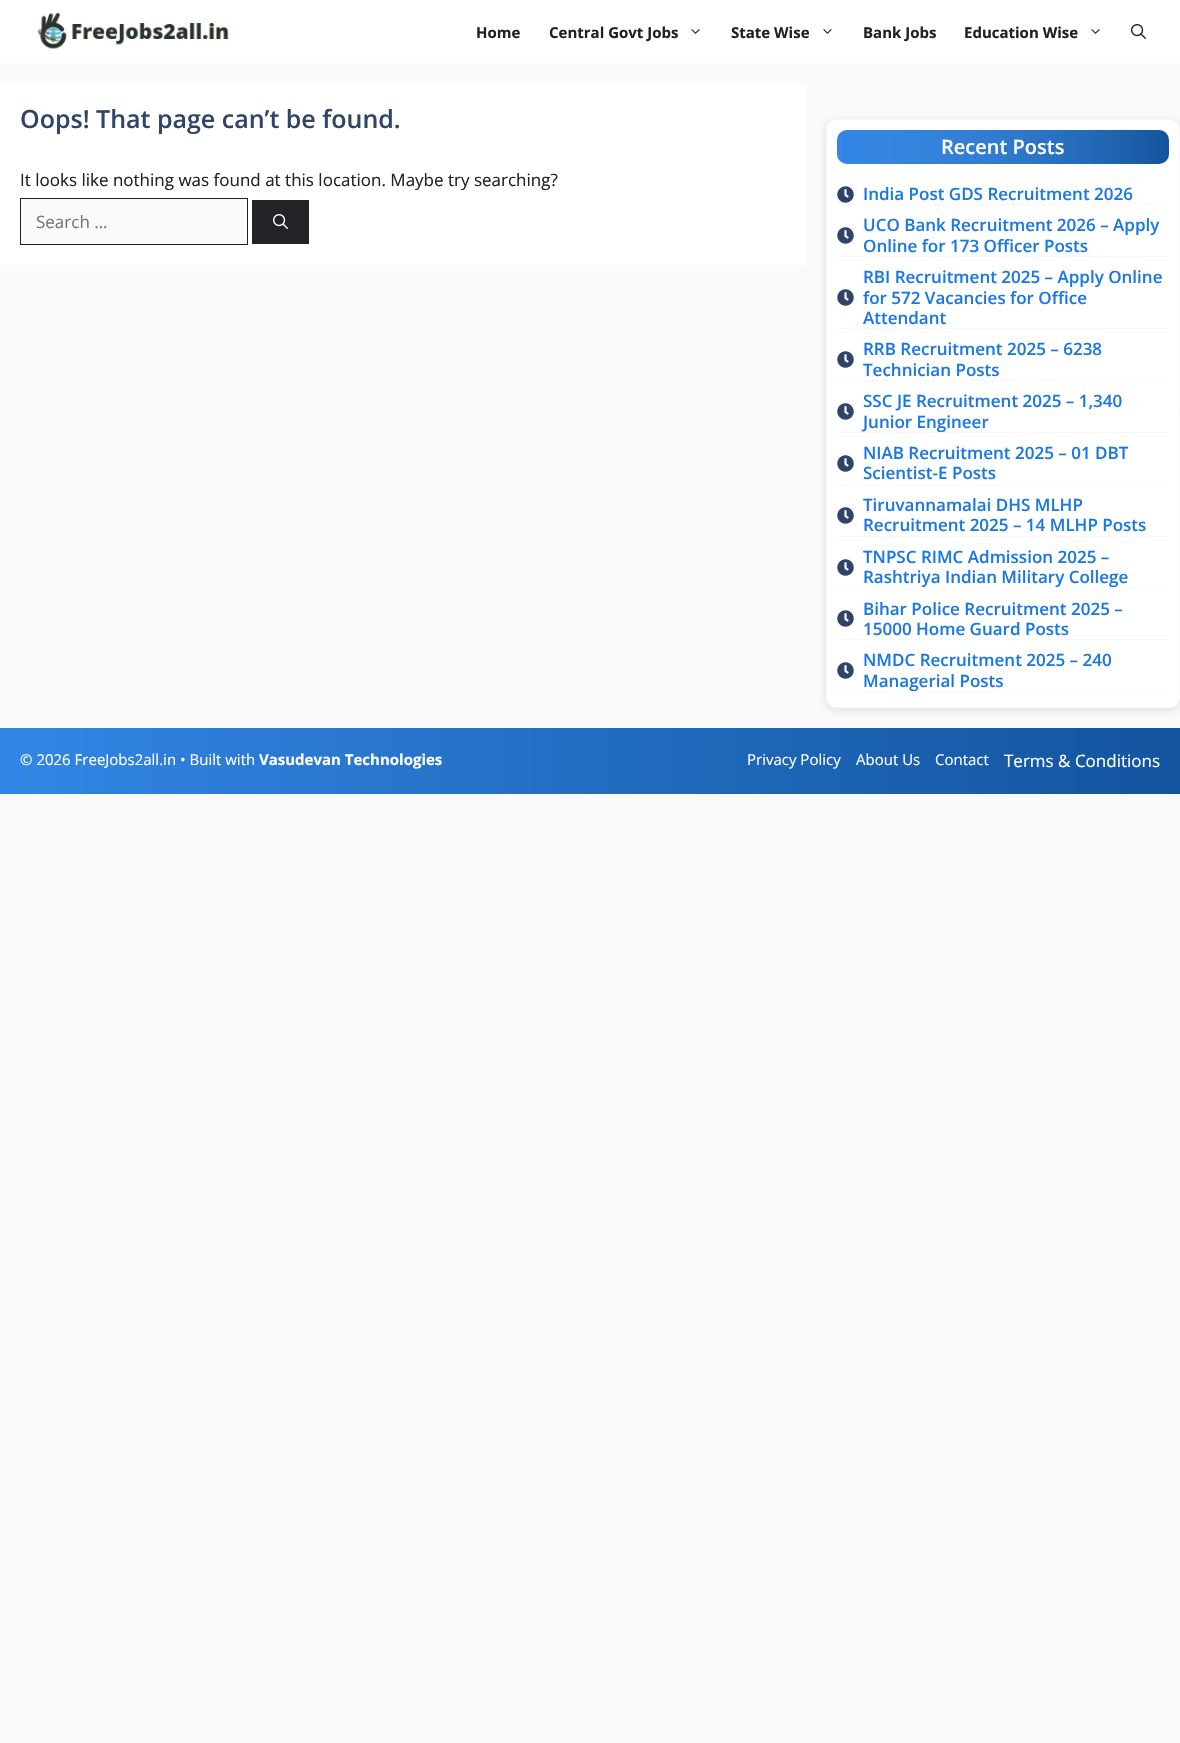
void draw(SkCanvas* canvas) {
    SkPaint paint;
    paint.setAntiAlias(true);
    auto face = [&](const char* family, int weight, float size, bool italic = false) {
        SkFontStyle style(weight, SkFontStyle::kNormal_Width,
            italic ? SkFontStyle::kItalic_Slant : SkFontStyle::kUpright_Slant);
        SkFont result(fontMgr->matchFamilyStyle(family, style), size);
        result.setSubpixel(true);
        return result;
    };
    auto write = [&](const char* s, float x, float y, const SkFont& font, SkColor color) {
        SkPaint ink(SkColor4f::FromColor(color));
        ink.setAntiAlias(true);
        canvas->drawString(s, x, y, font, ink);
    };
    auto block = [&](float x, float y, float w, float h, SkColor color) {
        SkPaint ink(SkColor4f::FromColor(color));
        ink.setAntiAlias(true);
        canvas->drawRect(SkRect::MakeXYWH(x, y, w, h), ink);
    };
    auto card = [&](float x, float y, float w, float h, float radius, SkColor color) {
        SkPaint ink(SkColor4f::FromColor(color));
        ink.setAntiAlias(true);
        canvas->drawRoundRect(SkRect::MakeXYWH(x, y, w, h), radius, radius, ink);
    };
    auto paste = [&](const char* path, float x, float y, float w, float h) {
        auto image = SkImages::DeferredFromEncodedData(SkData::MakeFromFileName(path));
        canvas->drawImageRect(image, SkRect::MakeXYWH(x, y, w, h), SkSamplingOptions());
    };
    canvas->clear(SkColorSetRGB(250, 250, 250));
    block(0, 0, 1180, 63, SK_ColorWHITE);
    paste("pic1.png", 37, 12, 192, 37);
    auto kFont1 = face("Open Sans", 700, 15);
    write("Home", 476, 38, kFont1, SkColorSetRGB(33, 33, 33));
    write("Central Govt Jobs", 549, 38, kFont1, SkColorSetRGB(33, 33, 33));
    paste("pic2.png", 691, 29, 9, 5);
    write("State Wise", 731, 38, kFont1, SkColorSetRGB(33, 33, 33));
    paste("pic2.png", 823, 29, 9, 5);
    write("Bank Jobs", 863, 38, kFont1, SkColorSetRGB(33, 33, 33));
    write("Education Wise", 964, 38, kFont1, SkColorSetRGB(33, 33, 33));
    paste("pic2.png", 1091, 29, 9, 5);
    paste("pic3.png", 1131, 24, 15, 15);
    block(0, 83, 806, 182, SK_ColorWHITE);
    auto kFont2 = face("Open Sans", 600, 25);
    write("Oops! That page can’t be found.", 20, 128, kFont2, SkColorSetRGB(47, 68, 104));
    auto kFont3 = face("Open Sans", 400, 17);
    write("It looks like nothing was found at this location. Maybe try searching?", 20, 186, kFont3, SkColorSetRGB(33, 33, 33));
    paint.setColor(SkColorSetRGB(250, 250, 250));
    canvas->drawRect(SkRect::MakeXYWH(20.5f, 198.5f, 227, 46), paint);
    paint.setStyle(SkPaint::kStroke_Style);
    paint.setStrokeWidth(1);
    paint.setColor(SkColorSetRGB(33, 33, 33));
    canvas->drawRect(SkRect::MakeXYWH(20.5f, 198.5f, 227, 46), paint);
    write("Search …", 36, 228, kFont3, SkColorSetRGB(117, 117, 117));
    block(252, 200, 57, 44, SkColorSetRGB(36, 34, 38));
    paste("pic4.png", 273, 214, 15, 15);
    paint.setStyle(SkPaint::kFill_Style);
    paint.setColor(SkColorSetARGB(51, 99, 99, 99));
    paint.setMaskFilter(SkMaskFilter::MakeBlur(kNormal_SkBlurStyle, 4));
    canvas->drawRoundRect(SkRect::MakeXYWH(826, 121, 354, 589), 10, 10, paint);
    paint.setMaskFilter(nullptr);
    paint.setColor(SK_ColorWHITE);
    canvas->drawRoundRect(SkRect::MakeXYWH(826.5f, 119.5f, 353, 588), 9.5f, 9.5f, paint);
    paint.setStyle(SkPaint::kStroke_Style);
    paint.setColor(SkColorSetRGB(247, 248, 249));
    canvas->drawRoundRect(SkRect::MakeXYWH(826.5f, 119.5f, 353, 588), 9.5f, 9.5f, paint);
    card(837, 130, 332, 34, 10, SkColorSetRGB(27, 120, 226));
    paint.setStyle(SkPaint::kFill_Style);
    {
        const SkColor colors[] = {SkColorSetARGB(26, 255, 255, 255), SkColorSetARGB(77, 0, 0, 0)};
        const float stops[] = {0, 1};
        const SkPoint ends[] = {{837, 147}, {1169, 147}};
        paint.setShader(SkGradientShader::MakeLinear(ends, colors, stops, 2, SkTileMode::kClamp));
        paint.setAlpha(255);
    }
    canvas->drawRoundRect(SkRect::MakeXYWH(837, 130, 332, 34), 10, 10, paint);
    auto kFont4 = face("Open Sans", 600, 20);
    write("Recent Posts", 941, 154, kFont4, SK_ColorWHITE);
    block(837, 204, 332, 1, SkColorSetRGB(247, 248, 249));
    paste("pic5.png", 837, 186, 17, 17);
    auto kFont5 = face("Open Sans", 600, 17);
    write("India Post GDS Recruitment 2026", 863, 200, kFont5, SkColorSetRGB(27, 120, 226));
    block(837, 256, 332, 1, SkColorSetRGB(247, 248, 249));
    paste("pic5.png", 837, 227, 17, 17);
    write("UCO Bank Recruitment 2026 – Apply", 863, 231, kFont5, SkColorSetRGB(27, 120, 226));
    write("Online for 173 Officer Posts", 863, 252, kFont5, SkColorSetRGB(27, 120, 226));
    block(837, 328, 332, 1, SkColorSetRGB(247, 248, 249));
    paste("pic5.png", 837, 289, 17, 17);
    write("RBI Recruitment 2025 – Apply Online", 863, 283, kFont5, SkColorSetRGB(27, 120, 226));
    write("for 572 Vacancies for Office", 863, 304, kFont5, SkColorSetRGB(27, 120, 226));
    write("Attendant", 863, 324, kFont5, SkColorSetRGB(27, 120, 226));
    block(837, 380, 332, 1, SkColorSetRGB(247, 248, 249));
    paste("pic5.png", 837, 351, 17, 17);
    write("RRB Recruitment 2025 – 6238", 863, 355, kFont5, SkColorSetRGB(27, 120, 226));
    write("Technician Posts", 863, 376, kFont5, SkColorSetRGB(27, 120, 226));
    block(837, 432, 332, 1, SkColorSetRGB(247, 248, 249));
    paste("pic5.png", 837, 403, 17, 17);
    write("SSC JE Recruitment 2025 – 1,340", 863, 407, kFont5, SkColorSetRGB(27, 120, 226));
    write("Junior Engineer", 863, 428, kFont5, SkColorSetRGB(27, 120, 226));
    block(837, 484, 332, 1, SkColorSetRGB(247, 248, 249));
    paste("pic5.png", 837, 455, 17, 17);
    write("NIAB Recruitment 2025 – 01 DBT", 863, 459, kFont5, SkColorSetRGB(27, 120, 226));
    write("Scientist-E Posts", 863, 479, kFont5, SkColorSetRGB(27, 120, 226));
    block(837, 536, 332, 1, SkColorSetRGB(247, 248, 249));
    paste("pic5.png", 837, 507, 17, 17);
    write("Tiruvannamalai DHS MLHP", 863, 511, kFont5, SkColorSetRGB(27, 120, 226));
    write("Recruitment 2025 – 14 MLHP Posts", 863, 531, kFont5, SkColorSetRGB(27, 120, 226));
    block(837, 588, 332, 1, SkColorSetRGB(247, 248, 249));
    paste("pic5.png", 837, 559, 17, 17);
    write("TNPSC RIMC Admission 2025 –", 863, 563, kFont5, SkColorSetRGB(27, 120, 226));
    write("Rashtriya Indian Military College", 863, 583, kFont5, SkColorSetRGB(27, 120, 226));
    block(837, 639, 332, 1, SkColorSetRGB(247, 248, 249));
    paste("pic5.png", 837, 610, 17, 17);
    write("Bihar Police Recruitment 2025 –", 863, 615, kFont5, SkColorSetRGB(27, 120, 226));
    write("15000 Home Guard Posts", 863, 635, kFont5, SkColorSetRGB(27, 120, 226));
    block(837, 691, 332, 1, SkColorSetRGB(247, 248, 249));
    paste("pic5.png", 837, 662, 17, 17);
    write("NMDC Recruitment 2025 – 240", 863, 666, kFont5, SkColorSetRGB(27, 120, 226));
    write("Managerial Posts", 863, 687, kFont5, SkColorSetRGB(27, 120, 226));
    {
        const SkColor colors[] = {SkColorSetRGB(50, 134, 229), SkColorSetRGB(19, 84, 158)};
        const float stops[] = {0, 1};
        const SkPoint ends[] = {{0, 761}, {1180, 761}};
        paint.setShader(SkGradientShader::MakeLinear(ends, colors, stops, 2, SkTileMode::kClamp));
        paint.setAlpha(255);
    }
    canvas->drawRect(SkRect::MakeXYWH(0, 728, 1180, 66), paint);
    auto kFont6 = face("Open Sans", 400, 15);
    write("© 2026 FreeJobs2all.in • Built with", 20, 765, kFont6, SK_ColorWHITE);
    write("Vasudevan Technologies", 259, 765, kFont1, SK_ColorWHITE);
    write("Privacy Policy", 747, 765, kFont6, SK_ColorWHITE);
    write("About Us", 856, 765, kFont6, SK_ColorWHITE);
    write("Contact", 935, 765, kFont6, SK_ColorWHITE);
    write("Terms & Conditions", 1004, 767, kFont3, SK_ColorWHITE);
}
